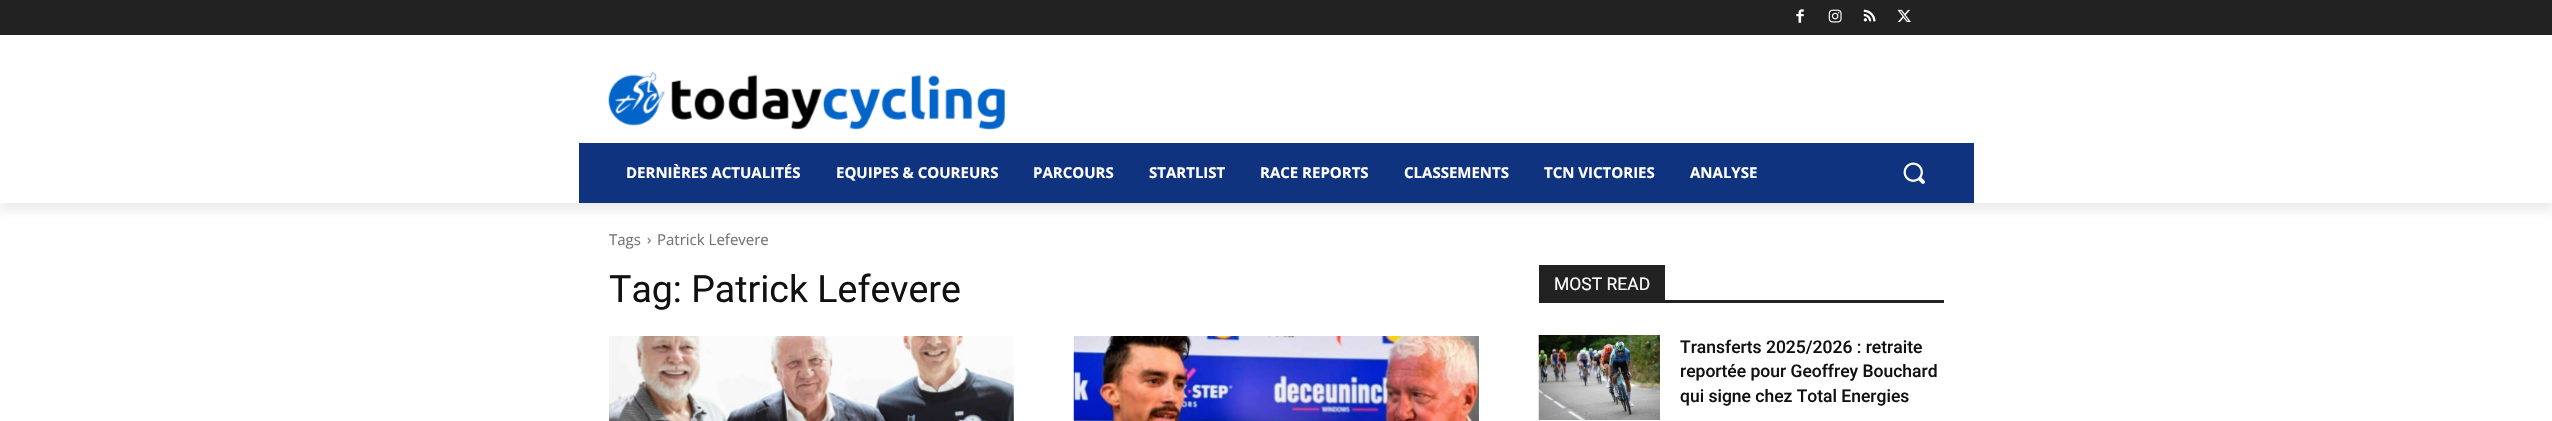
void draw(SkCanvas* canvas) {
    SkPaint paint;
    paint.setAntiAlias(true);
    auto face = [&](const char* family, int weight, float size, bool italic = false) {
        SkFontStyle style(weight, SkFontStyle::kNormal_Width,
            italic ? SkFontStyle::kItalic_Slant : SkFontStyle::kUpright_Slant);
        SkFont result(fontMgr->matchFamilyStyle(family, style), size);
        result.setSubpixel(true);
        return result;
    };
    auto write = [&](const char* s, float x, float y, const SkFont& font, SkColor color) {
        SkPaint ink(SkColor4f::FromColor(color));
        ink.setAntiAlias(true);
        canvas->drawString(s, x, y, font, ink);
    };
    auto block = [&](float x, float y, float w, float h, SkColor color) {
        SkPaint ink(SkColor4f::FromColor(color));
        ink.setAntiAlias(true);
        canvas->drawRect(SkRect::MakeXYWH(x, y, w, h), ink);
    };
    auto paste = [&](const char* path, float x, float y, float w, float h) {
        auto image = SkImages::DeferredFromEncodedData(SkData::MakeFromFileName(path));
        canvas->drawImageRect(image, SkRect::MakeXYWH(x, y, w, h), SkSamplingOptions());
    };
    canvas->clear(SK_ColorWHITE);
    block(0, 0, 2552, 35, SkColorSetRGB(34, 34, 34));
    paste("pic1.png", 1796, 9, 8, 14);
    paste("pic2.png", 1828, 9, 14, 14);
    paste("pic3.png", 1863, 9, 13, 13);
    paste("pic4.png", 1897, 9, 14, 13);
    paste("pic5.png", 608, 71, 397, 59);
    block(579, 143, 1395, 60, SkColorSetRGB(16, 51, 128));
    canvas->save();
    canvas->clipPath(SkPathBuilder(SkPathFillType::kEvenOdd).moveTo(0, 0).lineTo(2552, 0).lineTo(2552, 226).lineTo(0, 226).close().moveTo(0, 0).lineTo(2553, 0).lineTo(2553, 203).lineTo(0, 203).close().detach(), true);
    paint.setColor(SkColorSetARGB(20, 0, 0, 0));
    paint.setMaskFilter(SkMaskFilter::MakeBlur(kNormal_SkBlurStyle, 5));
    canvas->drawRect(SkRect::MakeXYWH(0, 8, 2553, 202), paint);
    paint.setMaskFilter(nullptr);
    canvas->restore();
    auto kFont1 = face("Open Sans", 700, 15);
    write("DERNIÈRES ACTUALITÉS", 626, 178, kFont1, SK_ColorWHITE);
    write("EQUIPES & COUREURS", 836, 178, kFont1, SK_ColorWHITE);
    write("PARCOURS", 1033, 178, kFont1, SK_ColorWHITE);
    write("STARTLIST", 1149, 178, kFont1, SK_ColorWHITE);
    write("RACE REPORTS", 1260, 178, kFont1, SK_ColorWHITE);
    write("CLASSEMENTS", 1404, 178, kFont1, SK_ColorWHITE);
    write("TCN VICTORIES", 1544, 178, kFont1, SK_ColorWHITE);
    write("ANALYSE", 1690, 178, kFont1, SK_ColorWHITE);
    paste("pic6.png", 1903, 162, 22, 22);
    auto kFont2 = face("Open Sans", 400, 15);
    write("Tags", 609, 245, kFont2, SkColorSetRGB(116, 116, 116));
    paste("pic7.png", 647, 237, 4, 7);
    write("Patrick Lefevere", 657, 245, kFont2, SkColorSetRGB(116, 116, 116));
    auto kFont3 = face("Roboto", 400, 37.5f);
    write("Tag: Patrick Lefevere", 609, 302, kFont3, SkColorSetRGB(17, 17, 17));
    paste("pic8.png", 609, 336, 405, 85);
    paste("pic9.png", 1073, 336, 406, 85);
    block(1539, 300, 405, 3, SkColorSetRGB(34, 34, 34));
    block(1539, 265, 126, 35, SkColorSetRGB(34, 34, 34));
    auto kFont4 = face("Roboto", 400, 17.5f);
    write("MOST READ", 1554, 290, kFont4, SK_ColorWHITE);
    paste("pic10.png", 1538, 335, 122, 85);
    auto kFont5 = face("Roboto", 500, 17.5f);
    write("Transferts 2025/2026 : retraite", 1680, 353, kFont5, SkColorSetRGB(17, 17, 17));
    write("reportée pour Geoffrey Bouchard", 1680, 377, kFont5, SkColorSetRGB(17, 17, 17));
    write("qui signe chez Total Energies", 1680, 402, kFont5, SkColorSetRGB(17, 17, 17));
}
